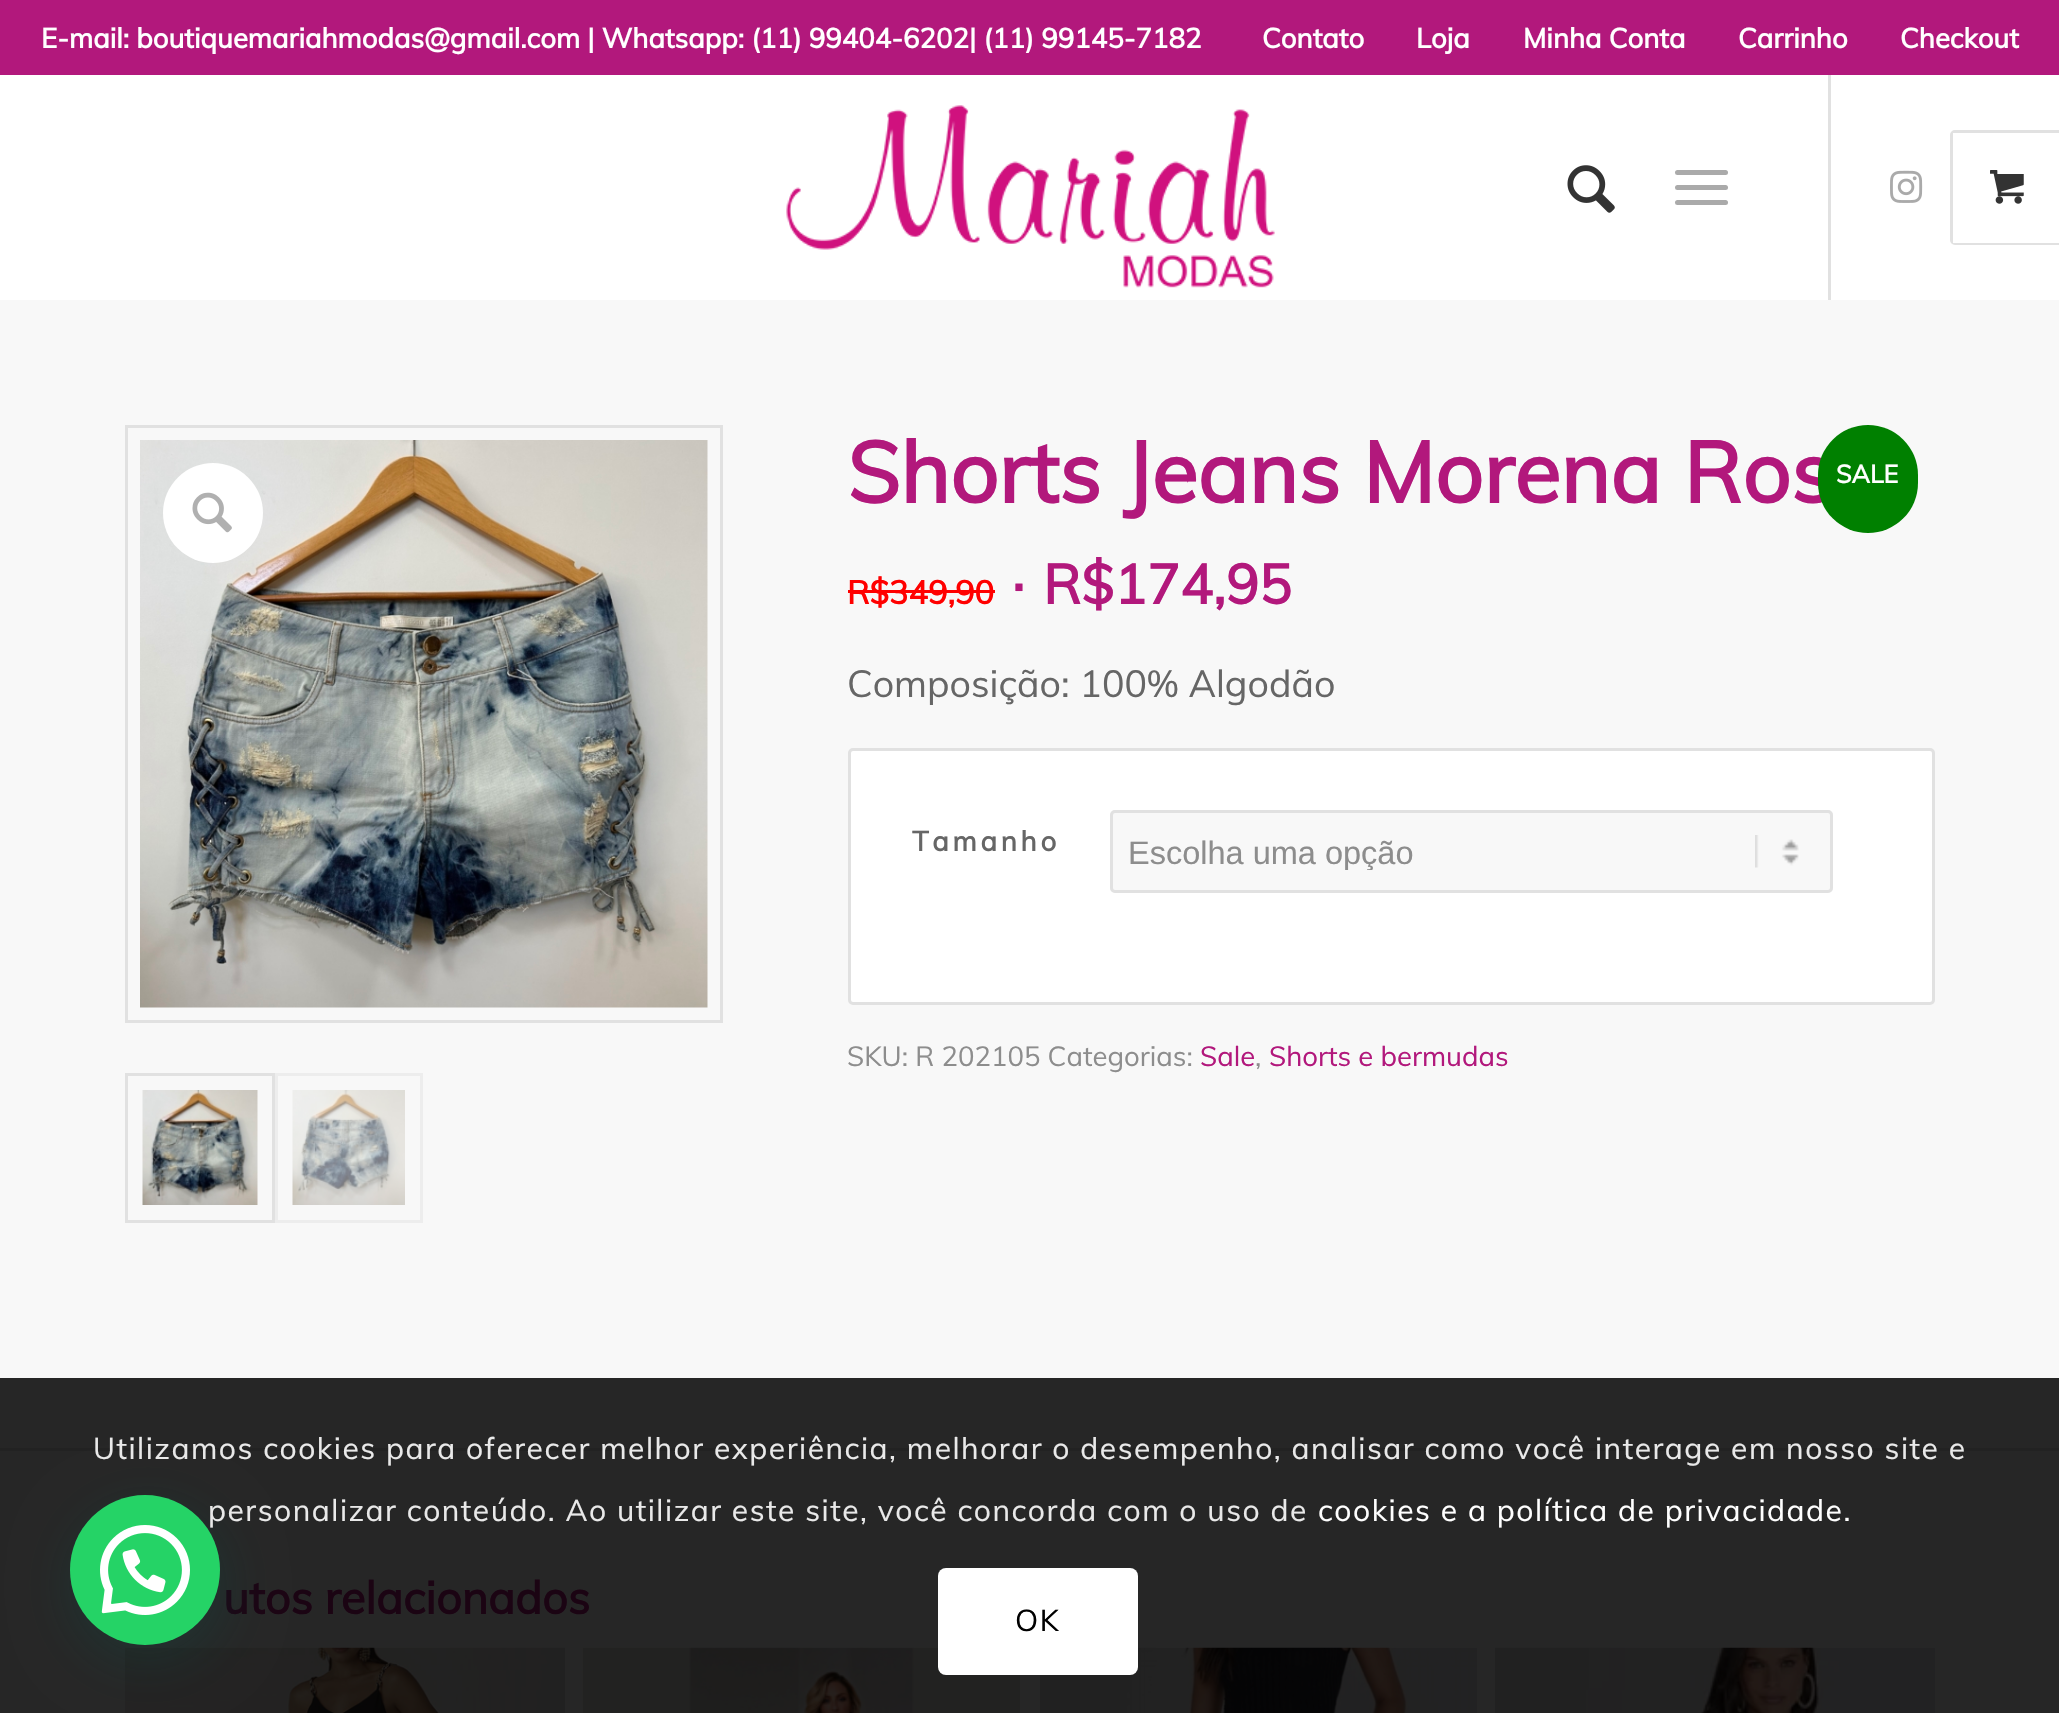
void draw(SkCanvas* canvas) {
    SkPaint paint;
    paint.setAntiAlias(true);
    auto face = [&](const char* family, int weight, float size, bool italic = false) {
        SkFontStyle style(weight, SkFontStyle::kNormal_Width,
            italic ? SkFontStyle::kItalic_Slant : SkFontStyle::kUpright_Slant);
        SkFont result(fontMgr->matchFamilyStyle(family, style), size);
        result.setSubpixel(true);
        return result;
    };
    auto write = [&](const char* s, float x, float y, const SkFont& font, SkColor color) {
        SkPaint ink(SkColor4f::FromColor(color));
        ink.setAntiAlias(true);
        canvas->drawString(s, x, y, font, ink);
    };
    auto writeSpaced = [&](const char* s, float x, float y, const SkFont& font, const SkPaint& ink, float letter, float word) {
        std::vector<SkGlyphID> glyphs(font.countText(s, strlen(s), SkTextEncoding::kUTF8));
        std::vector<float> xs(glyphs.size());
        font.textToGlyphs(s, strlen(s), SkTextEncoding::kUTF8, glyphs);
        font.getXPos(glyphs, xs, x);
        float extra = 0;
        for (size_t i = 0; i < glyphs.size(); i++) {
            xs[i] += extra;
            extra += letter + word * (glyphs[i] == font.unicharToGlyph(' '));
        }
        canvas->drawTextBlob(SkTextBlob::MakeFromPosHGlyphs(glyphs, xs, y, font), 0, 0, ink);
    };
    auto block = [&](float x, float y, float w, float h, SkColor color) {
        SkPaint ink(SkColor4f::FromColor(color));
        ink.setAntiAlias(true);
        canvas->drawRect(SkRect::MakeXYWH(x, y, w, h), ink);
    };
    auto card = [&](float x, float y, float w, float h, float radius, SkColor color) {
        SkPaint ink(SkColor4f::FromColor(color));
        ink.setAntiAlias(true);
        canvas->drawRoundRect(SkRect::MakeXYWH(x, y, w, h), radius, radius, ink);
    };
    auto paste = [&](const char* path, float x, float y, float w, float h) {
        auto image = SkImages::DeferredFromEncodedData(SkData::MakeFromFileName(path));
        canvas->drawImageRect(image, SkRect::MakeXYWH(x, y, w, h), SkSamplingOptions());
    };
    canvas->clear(SkColorSetRGB(38, 38, 38));
    block(0, 0, 2059, 75, SkColorSetRGB(178, 24, 124));
    auto kFont1 = face("Muli", 700, 27.5f);
    write("E-mail: boutiquemariahmodas@gmail.com | Whatsapp: (11) 99404-6202| (11) 99145-7182", 41, 48, kFont1, SK_ColorWHITE);
    write("Contato", 1262, 48, kFont1, SK_ColorWHITE);
    write("Loja", 1416, 48, kFont1, SK_ColorWHITE);
    write("Minha Conta", 1523, 48, kFont1, SK_ColorWHITE);
    write("Carrinho", 1738, 48, kFont1, SK_ColorWHITE);
    write("Checkout", 1900, 48, kFont1, SK_ColorWHITE);
    block(0, 75, 2059, 225, SK_ColorWHITE);
    paste("pic1.png", 786, 105, 489, 183);
    block(1828, 75, 3, 225, SkColorSetRGB(225, 225, 225));
    paste("pic2.png", 1567, 165, 48, 48);
    card(1675, 185, 53, 5, 2.5f, SkColorSetRGB(170, 170, 170));
    card(1675, 170, 53, 5, 2.5f, SkColorSetRGB(170, 170, 170));
    card(1675, 200, 53, 5, 2.5f, SkColorSetRGB(170, 170, 170));
    paste("pic3.png", 1890, 170, 33, 33);
    paint.setStyle(SkPaint::kStroke_Style);
    paint.setStrokeWidth(3);
    paint.setColor(SkColorSetRGB(225, 225, 225));
    canvas->drawRoundRect(SkRect::MakeXYWH(1951.5f, 131.5f, 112, 112), 3.5f, 3.5f, paint);
    block(1953, 133, 106, 110, SK_ColorWHITE);
    paste("pic4.png", 1990, 170, 34, 34);
    block(0, 300, 2059, 1078, SkColorSetRGB(248, 248, 248));
    auto kFont2 = face("Muli", 700, 85);
    write("Shorts Jeans Morena Ros", 847, 503, kFont2, SkColorSetRGB(178, 24, 124));
    auto kFont3 = face("Muli", 700, 32.5f);
    write("R$349,90", 847, 604, kFont3, SkColorSetRGB(255, 0, 0));
    block(848, 590, 147, 3, SkColorSetRGB(255, 0, 0));
    auto kFont4 = face("Liberation Sans", 700, 50);
    write("∙", 1012, 604, kFont4, SkColorSetRGB(178, 24, 124));
    auto kFont5 = face("Muli", 700, 55);
    write("R$174,95", 1043, 604, kFont5, SkColorSetRGB(178, 24, 124));
    auto kFont6 = face("Muli", 400, 37.5f);
    write("Composição: 100% Algodão", 847, 697, kFont6, SkColorSetRGB(102, 102, 102));
    paint.setStyle(SkPaint::kFill_Style);
    paint.setColor(SK_ColorWHITE);
    canvas->drawRoundRect(SkRect::MakeXYWH(849.5f, 749.5f, 1084, 254), 3.5f, 3.5f, paint);
    paint.setStyle(SkPaint::kStroke_Style);
    paint.setColor(SkColorSetRGB(225, 225, 225));
    canvas->drawRoundRect(SkRect::MakeXYWH(849.5f, 749.5f, 1084, 254), 3.5f, 3.5f, paint);
    paint.setStyle(SkPaint::kFill_Style);
    paint.setColor(SkColorSetRGB(102, 102, 102));
    writeSpaced("Tamanho", 912, 851, kFont1, paint, 3.75f, 0);
    card(1110, 810, 723, 83, 5, SkColorSetRGB(248, 248, 248));
    paste("pic5.png", 1755, 835, 44, 33);
    paint.setStyle(SkPaint::kStroke_Style);
    paint.setColor(SkColorSetRGB(225, 225, 225));
    canvas->drawRoundRect(SkRect::MakeXYWH(1111.5f, 811.5f, 720, 80), 3.5f, 3.5f, paint);
    canvas->save();
    canvas->clipRect(SkRect::MakeXYWH(1128, 833, 627, 37));
    auto kFont7 = face("Liberation Sans", 400, 32.5f);
    write("Escolha uma opção", 1128, 864, kFont7, SkColorSetRGB(141, 141, 141));
    canvas->restore();
    auto kFont8 = face("Muli", 400, 27.5f);
    write("SKU: R 202105 Categorias:", 847, 1066, kFont8, SkColorSetRGB(141, 141, 141));
    write("Sale", 1200, 1066, kFont8, SkColorSetRGB(178, 24, 124));
    write(",", 1255, 1066, kFont8, SkColorSetRGB(141, 141, 141));
    write("Shorts e bermudas", 1269, 1066, kFont8, SkColorSetRGB(178, 24, 124));
    canvas->drawRect(SkRect::MakeXYWH(126.5f, 426.5f, 595, 595), paint);
    paste("pic6.png", 140, 440, 568, 568);
    canvas->drawRect(SkRect::MakeXYWH(126.5f, 1074.5f, 147, 147), paint);
    paste("pic7.png", 142, 1090, 116, 115);
    paint.setColor(SkColorSetRGB(237, 237, 237));
    canvas->drawRect(SkRect::MakeXYWH(276.5f, 1074.5f, 145, 147), paint);
    paste("pic8.png", 292, 1090, 113, 115);
    paint.setStyle(SkPaint::kFill_Style);
    paint.setColor(SK_ColorWHITE);
    canvas->drawCircle(213, 513, 50, paint);
    paste("pic9.png", 192, 492, 40, 41);
    card(1818, 425, 100, 108, 50, SkColorSetRGB(0, 128, 0));
    auto kFont9 = face("Muli", 700, 25);
    write("SALE", 1836, 483, kFont9, SK_ColorWHITE);
    block(0, 1448, 2059, 3, SkColorSetRGB(34, 34, 34));
    auto kFont10 = face("Muli", 700, 45);
    write("utos relacionados", 223, 1614, kFont10, SkColorSetRGB(27, 4, 19));
    paste("pic10.png", 125, 1647, 440, 66);
    paste("pic11.png", 582, 1647, 438, 66);
    paste("pic12.png", 1040, 1647, 438, 66);
    paste("pic13.png", 1495, 1647, 440, 66);
    paint.setColor(SkColorSetARGB(61, 7, 94, 84));
    paint.setMaskFilter(SkMaskFilter::MakeBlur(kNormal_SkBlurStyle, 30));
    canvas->drawRoundRect(SkRect::MakeXYWH(73, 1510, 150, 150), 75, 75, paint);
    paint.setMaskFilter(nullptr);
    auto kFont11 = face("Muli", 400, 30);
    paint.setColor(SkColorSetRGB(233, 233, 233));
    writeSpaced("personalizar conteúdo. Ao utilizar este site, você concorda com o uso de", 208, 1521, kFont11, paint, 1.5f, 0);
    paint.setColor(SkColorSetRGB(37, 211, 102));
    canvas->drawCircle(145, 1570, 75, paint);
    paste("pic14.png", 100, 1525, 90, 90);
    paint.setColor(SkColorSetRGB(233, 233, 233));
    writeSpaced("Utilizamos cookies para oferecer melhor experiência, melhorar o desempenho, analisar como você interage em nosso site e", 93, 1459, kFont11, paint, 1.5f, 0);
    paint.setColor(SK_ColorWHITE);
    writeSpaced("cookies e a política de privacidade.", 1318, 1521, kFont11, paint, 1.5f, 0);
    card(938, 1568, 200, 107, 8, SK_ColorWHITE);
    paint.setColor(SK_ColorBLACK);
    writeSpaced("OK", 1015, 1631, kFont11, paint, 1.5f, 0);
}
